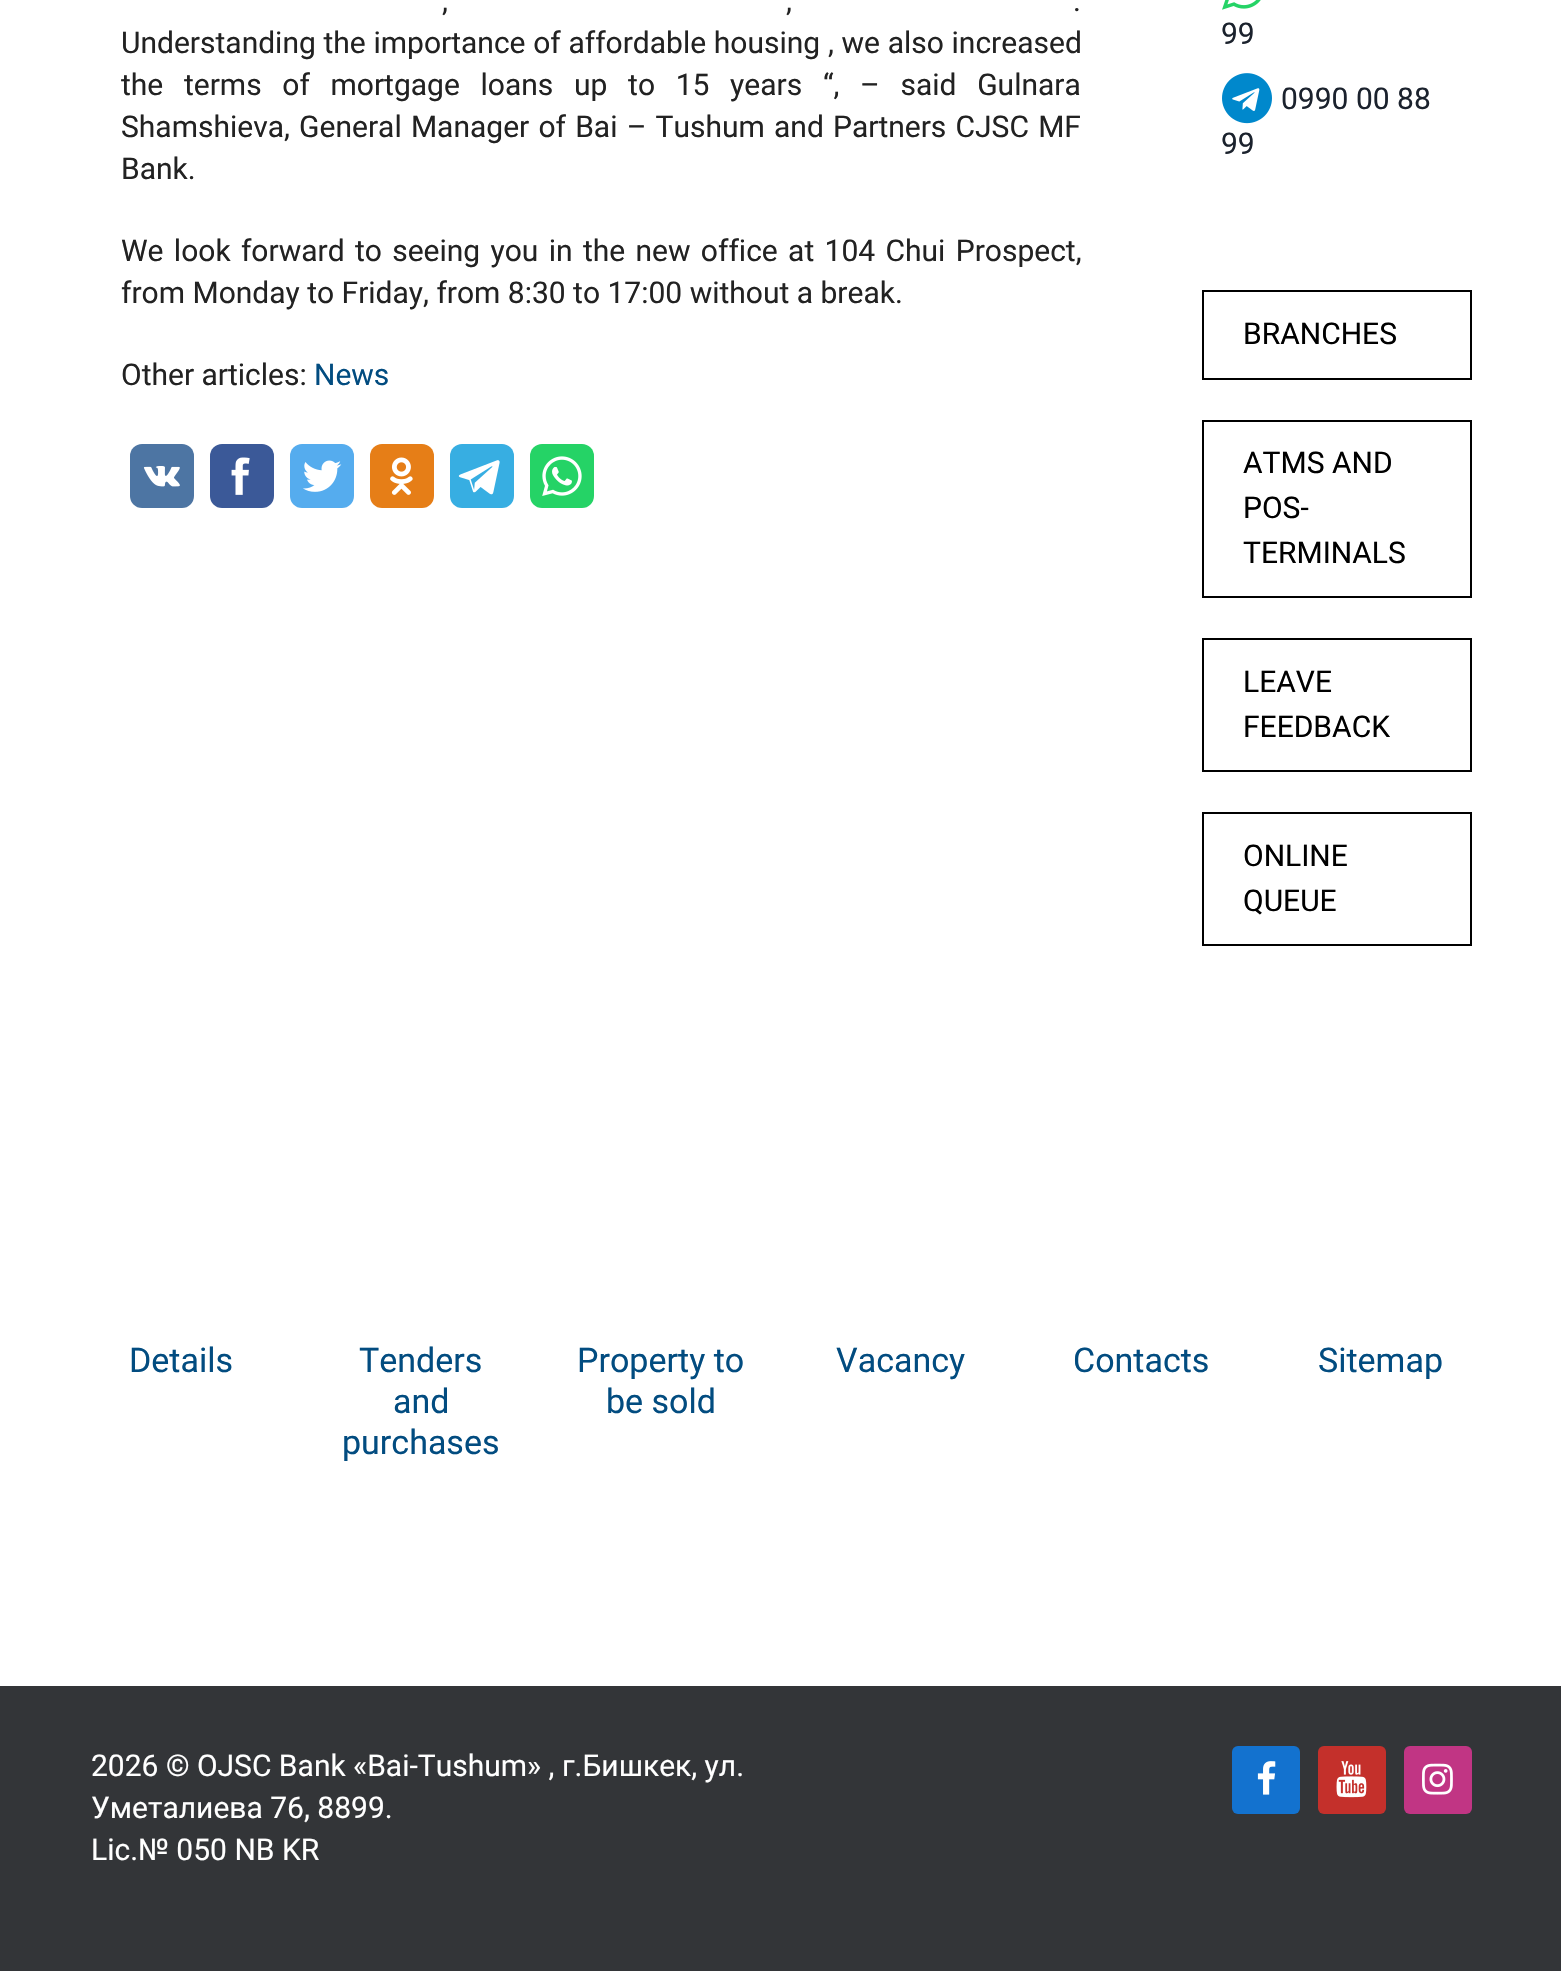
void draw(SkCanvas* canvas) {
    SkPaint paint;
    paint.setAntiAlias(true);
    auto face = [&](const char* family, int weight, float size, bool italic = false) {
        SkFontStyle style(weight, SkFontStyle::kNormal_Width,
            italic ? SkFontStyle::kItalic_Slant : SkFontStyle::kUpright_Slant);
        SkFont result(fontMgr->matchFamilyStyle(family, style), size);
        result.setSubpixel(true);
        return result;
    };
    auto write = [&](const char* s, float x, float y, const SkFont& font, SkColor color) {
        SkPaint ink(SkColor4f::FromColor(color));
        ink.setAntiAlias(true);
        canvas->drawString(s, x, y, font, ink);
    };
    auto writeSpaced = [&](const char* s, float x, float y, const SkFont& font, const SkPaint& ink, float letter, float word) {
        std::vector<SkGlyphID> glyphs(font.countText(s, strlen(s), SkTextEncoding::kUTF8));
        std::vector<float> xs(glyphs.size());
        font.textToGlyphs(s, strlen(s), SkTextEncoding::kUTF8, glyphs);
        font.getXPos(glyphs, xs, x);
        float extra = 0;
        for (size_t i = 0; i < glyphs.size(); i++) {
            xs[i] += extra;
            extra += letter + word * (glyphs[i] == font.unicharToGlyph(' '));
        }
        canvas->drawTextBlob(SkTextBlob::MakeFromPosHGlyphs(glyphs, xs, y, font), 0, 0, ink);
    };
    auto block = [&](float x, float y, float w, float h, SkColor color) {
        SkPaint ink(SkColor4f::FromColor(color));
        ink.setAntiAlias(true);
        canvas->drawRect(SkRect::MakeXYWH(x, y, w, h), ink);
    };
    auto card = [&](float x, float y, float w, float h, float radius, SkColor color) {
        SkPaint ink(SkColor4f::FromColor(color));
        ink.setAntiAlias(true);
        canvas->drawRoundRect(SkRect::MakeXYWH(x, y, w, h), radius, radius, ink);
    };
    auto paste = [&](const char* path, float x, float y, float w, float h) {
        auto image = SkImages::DeferredFromEncodedData(SkData::MakeFromFileName(path));
        canvas->drawImageRect(image, SkRect::MakeXYWH(x, y, w, h), SkSamplingOptions());
    };
    canvas->clear(SK_ColorWHITE);
    auto kFont1 = face("Roboto", 400, 30);
    paint.setColor(SkColorSetRGB(34, 34, 34));
    writeSpaced(",", 442, 11, kFont1, paint, 0, 15);
    writeSpaced(",", 786, 11, kFont1, paint, 0, 15);
    writeSpaced(".", 1073, 11, kFont1, paint, 0, 15);
    writeSpaced("Understanding the importance of affordable housing , we also increased", 121, 53, kFont1, paint, 0, 0.25f);
    writeSpaced("the terms of mortgage loans up to 15 years “, – said Gulnara", 121, 95, kFont1, paint, 0, 13.25f);
    writeSpaced("Shamshieva, General Manager of Bai – Tushum and Partners CJSC MF", 121, 137, kFont1, paint, 0, 1.75f);
    write("Bank.", 121, 179, kFont1, SkColorSetRGB(34, 34, 34));
    writeSpaced("We look forward to seeing you in the new office at 104 Chui Prospect,", 121, 261, kFont1, paint, 0, 2.9f);
    write("from Monday to Friday, from 8:30 to 17:00 without a break.", 121, 303, kFont1, SkColorSetRGB(34, 34, 34));
    write("Other articles:", 121, 385, kFont1, SkColorSetRGB(34, 34, 34));
    write("News", 314, 385, kFont1, SkColorSetRGB(2, 76, 128));
    card(130, 444, 64, 64, 12, SkColorSetRGB(77, 117, 163));
    paste("pic1.png", 143, 466, 37, 21);
    card(210, 444, 64, 64, 12, SkColorSetRGB(59, 89, 152));
    paste("pic2.png", 231, 457, 19, 38);
    card(290, 444, 64, 64, 12, SkColorSetRGB(85, 172, 238));
    paste("pic3.png", 303, 460, 39, 32);
    card(370, 444, 64, 64, 12, SkColorSetRGB(230, 126, 23));
    paste("pic4.png", 390, 457, 23, 38);
    card(450, 444, 64, 64, 12, SkColorSetRGB(55, 174, 226));
    paste("pic5.png", 458, 460, 42, 35);
    card(530, 444, 64, 64, 12, SkColorSetRGB(37, 211, 102));
    paste("pic6.png", 542, 456, 40, 40);
    paste("pic7.png", 1222, 0, 39, 10);
    write("99", 1221, 44, kFont1, SkColorSetRGB(27, 34, 45));
    paste("pic8.png", 1222, 73, 50, 51);
    write("0990 00 88", 1281, 109, kFont1, SkColorSetRGB(27, 34, 45));
    write("99", 1221, 154, kFont1, SkColorSetRGB(27, 34, 45));
    paint.setStyle(SkPaint::kStroke_Style);
    paint.setStrokeWidth(2);
    paint.setColor(SK_ColorBLACK);
    canvas->drawRect(SkRect::MakeXYWH(1203, 291, 268, 88), paint);
    write("BRANCHES", 1243, 344, kFont1, SK_ColorBLACK);
    canvas->drawRect(SkRect::MakeXYWH(1203, 421, 268, 176), paint);
    write("ATMS AND", 1243, 473, kFont1, SK_ColorBLACK);
    write("POS-", 1243, 518, kFont1, SK_ColorBLACK);
    write("TERMINALS", 1243, 563, kFont1, SK_ColorBLACK);
    canvas->drawRect(SkRect::MakeXYWH(1203, 639, 268, 132), paint);
    write("LEAVE", 1243, 692, kFont1, SK_ColorBLACK);
    write("FEEDBACK", 1243, 737, kFont1, SK_ColorBLACK);
    canvas->drawRect(SkRect::MakeXYWH(1203, 813, 268, 132), paint);
    write("ONLINE", 1243, 866, kFont1, SK_ColorBLACK);
    write("QUEUE", 1243, 911, kFont1, SK_ColorBLACK);
    auto kFont2 = face("Roboto", 400, 34);
    write("Details", 129, 1372, kFont2, SkColorSetRGB(2, 76, 128));
    write("Tenders", 359, 1372, kFont2, SkColorSetRGB(2, 76, 128));
    write("and", 393, 1413, kFont2, SkColorSetRGB(2, 76, 128));
    write("purchases", 342, 1454, kFont2, SkColorSetRGB(2, 76, 128));
    write("Property to", 577, 1372, kFont2, SkColorSetRGB(2, 76, 128));
    write("be sold", 606, 1413, kFont2, SkColorSetRGB(2, 76, 128));
    write("Vacancy", 836, 1372, kFont2, SkColorSetRGB(2, 76, 128));
    write("Contacts", 1073, 1372, kFont2, SkColorSetRGB(2, 76, 128));
    write("Sitemap", 1318, 1372, kFont2, SkColorSetRGB(2, 76, 128));
    block(0, 1686, 1561, 285, SkColorSetRGB(51, 53, 56));
    write("2026 © OJSC Bank «Bai-Tushum» , г.Бишкек, ул.", 91, 1776, kFont1, SK_ColorWHITE);
    write("Уметалиева 76, 8899.", 91, 1818, kFont1, SK_ColorWHITE);
    write("Lic.№ 050 NB KR", 91, 1860, kFont1, SK_ColorWHITE);
    card(1232, 1746, 68, 68, 6, SkColorSetRGB(19, 114, 207));
    paste("pic9.png", 1257, 1761, 19, 34);
    card(1318, 1746, 68, 68, 6, SkColorSetRGB(196, 48, 43));
    paste("pic10.png", 1336, 1761, 31, 37);
    card(1404, 1746, 68, 68, 6, SkColorSetRGB(193, 53, 132));
    paste("pic11.png", 1422, 1763, 31, 32);
}
